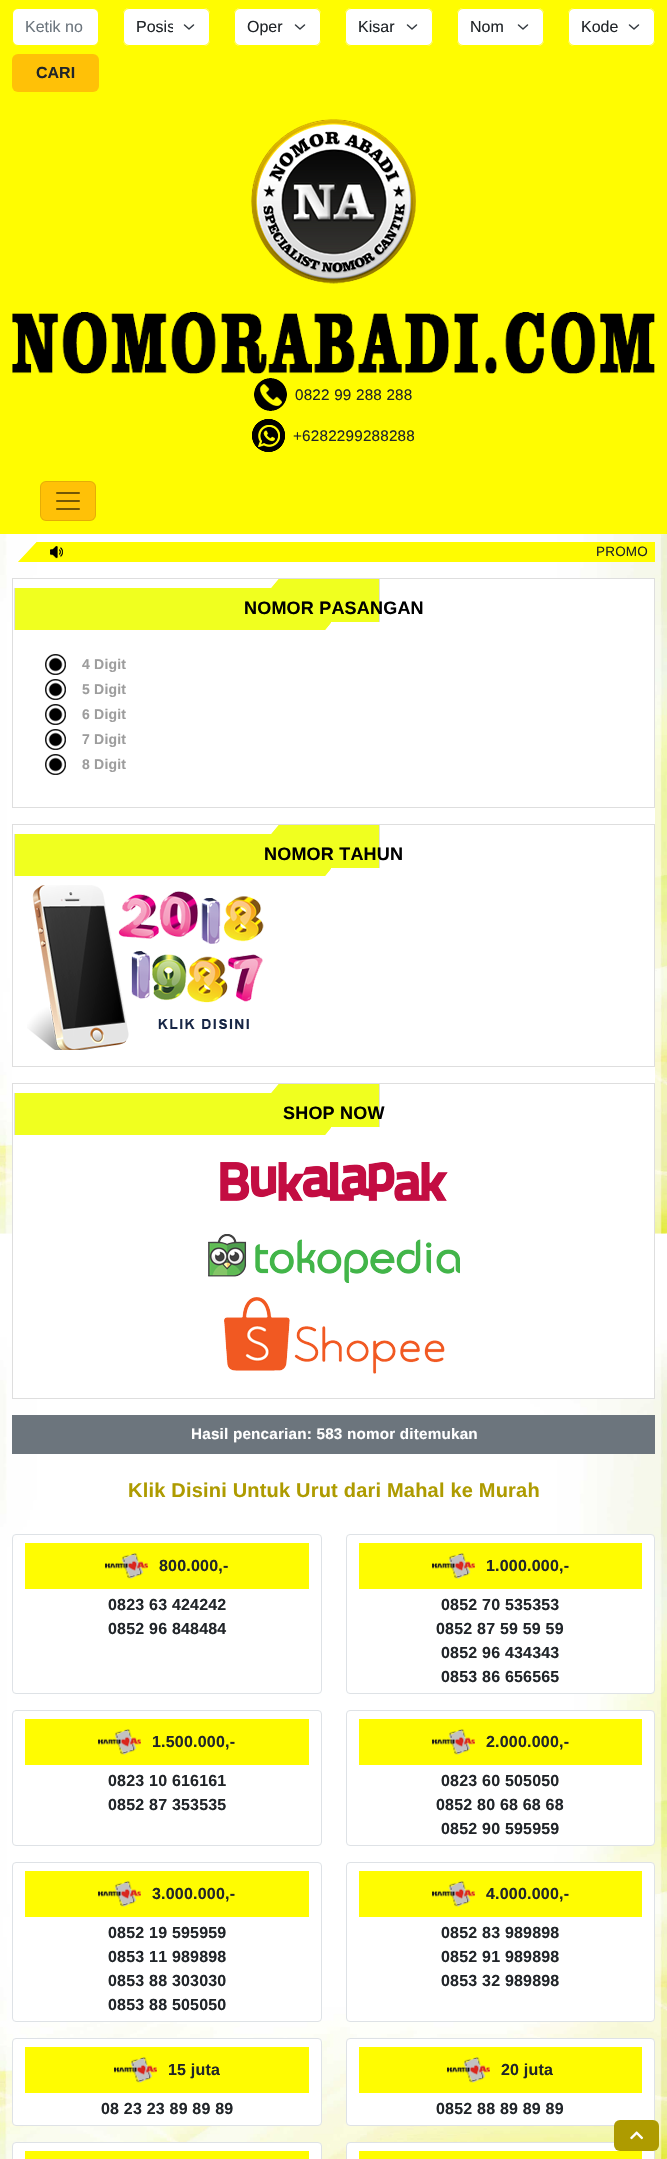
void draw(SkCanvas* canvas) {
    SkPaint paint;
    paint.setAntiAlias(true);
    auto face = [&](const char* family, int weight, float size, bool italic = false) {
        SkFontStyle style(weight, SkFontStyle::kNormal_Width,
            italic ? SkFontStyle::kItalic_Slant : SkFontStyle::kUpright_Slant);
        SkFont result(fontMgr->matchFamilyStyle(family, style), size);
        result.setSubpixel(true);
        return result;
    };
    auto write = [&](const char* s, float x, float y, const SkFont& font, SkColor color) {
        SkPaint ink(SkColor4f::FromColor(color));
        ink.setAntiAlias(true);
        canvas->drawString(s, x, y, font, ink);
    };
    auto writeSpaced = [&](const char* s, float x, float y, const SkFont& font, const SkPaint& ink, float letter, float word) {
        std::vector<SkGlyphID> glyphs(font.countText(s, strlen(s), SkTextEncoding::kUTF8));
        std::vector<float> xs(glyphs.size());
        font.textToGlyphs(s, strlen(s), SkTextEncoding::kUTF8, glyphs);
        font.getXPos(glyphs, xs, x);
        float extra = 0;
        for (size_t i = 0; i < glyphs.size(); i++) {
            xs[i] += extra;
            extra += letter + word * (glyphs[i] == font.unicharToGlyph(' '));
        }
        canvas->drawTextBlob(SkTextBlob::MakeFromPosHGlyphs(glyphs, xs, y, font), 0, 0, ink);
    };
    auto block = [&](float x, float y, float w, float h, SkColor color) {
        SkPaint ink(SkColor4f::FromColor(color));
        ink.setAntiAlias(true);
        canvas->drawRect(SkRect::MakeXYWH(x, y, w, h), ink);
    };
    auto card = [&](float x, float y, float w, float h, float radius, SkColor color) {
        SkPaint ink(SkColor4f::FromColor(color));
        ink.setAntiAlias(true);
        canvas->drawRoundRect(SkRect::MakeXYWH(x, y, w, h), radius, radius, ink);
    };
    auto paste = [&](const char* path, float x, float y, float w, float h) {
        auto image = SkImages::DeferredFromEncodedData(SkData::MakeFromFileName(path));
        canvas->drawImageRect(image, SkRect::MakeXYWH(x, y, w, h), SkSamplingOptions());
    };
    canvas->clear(SK_ColorWHITE);
    paste("pic1.png", 0, 534, 667, 1625);
    block(0, 0, 667, 534, SkColorSetRGB(255, 252, 1));
    paint.setColor(SK_ColorWHITE);
    canvas->drawRoundRect(SkRect::MakeXYWH(12.5f, 8.5f, 86, 37), 5.5f, 5.5f, paint);
    paint.setStyle(SkPaint::kStroke_Style);
    paint.setStrokeWidth(1);
    paint.setColor(SkColorSetRGB(255, 252, 1));
    canvas->drawRoundRect(SkRect::MakeXYWH(12.5f, 8.5f, 86, 37), 5.5f, 5.5f, paint);
    auto kFont1 = face("Liberation Sans", 400, 16);
    write("Ketik no", 25, 32, kFont1, SkColorSetRGB(108, 117, 125));
    card(123, 8, 87, 38, 6, SK_ColorWHITE);
    paint.setStrokeWidth(1.5f);
    paint.setStrokeCap(SkPaint::kRound_Cap);
    paint.setStrokeJoin(SkPaint::kRound_Join);
    paint.setColor(SkColorSetRGB(52, 58, 64));
    canvas->drawPath(SkPathBuilder().moveTo(184.5f, 25).lineTo(189, 29).lineTo(193.5f, 25).detach(), paint);
    paint.setStrokeWidth(1);
    paint.setStrokeCap(SkPaint::kButt_Cap);
    paint.setStrokeJoin(SkPaint::kMiter_Join);
    paint.setColor(SkColorSetRGB(255, 252, 1));
    canvas->drawRoundRect(SkRect::MakeXYWH(123.5f, 8.5f, 86, 37), 5.5f, 5.5f, paint);
    canvas->save();
    canvas->clipRect(SkRect::MakeXYWH(136, 15, 37, 24));
    write("Posis", 136, 32, kFont1, SkColorSetRGB(33, 37, 41));
    canvas->restore();
    card(234, 8, 87, 38, 6, SK_ColorWHITE);
    paint.setStrokeWidth(1.5f);
    paint.setStrokeCap(SkPaint::kRound_Cap);
    paint.setStrokeJoin(SkPaint::kRound_Join);
    paint.setColor(SkColorSetRGB(52, 58, 64));
    canvas->drawPath(SkPathBuilder().moveTo(295.5f, 25).lineTo(300, 29).lineTo(304.5f, 25).detach(), paint);
    paint.setStrokeWidth(1);
    paint.setStrokeCap(SkPaint::kButt_Cap);
    paint.setStrokeJoin(SkPaint::kMiter_Join);
    paint.setColor(SkColorSetRGB(255, 252, 1));
    canvas->drawRoundRect(SkRect::MakeXYWH(234.5f, 8.5f, 86, 37), 5.5f, 5.5f, paint);
    write("Oper", 247, 32, kFont1, SkColorSetRGB(33, 37, 41));
    card(345, 8, 88, 38, 6, SK_ColorWHITE);
    paint.setStrokeWidth(1.5f);
    paint.setStrokeCap(SkPaint::kRound_Cap);
    paint.setStrokeJoin(SkPaint::kRound_Join);
    paint.setColor(SkColorSetRGB(52, 58, 64));
    canvas->drawPath(SkPathBuilder().moveTo(407.5f, 25).lineTo(412, 29).lineTo(416.5f, 25).detach(), paint);
    paint.setStrokeWidth(1);
    paint.setStrokeCap(SkPaint::kButt_Cap);
    paint.setStrokeJoin(SkPaint::kMiter_Join);
    paint.setColor(SkColorSetRGB(255, 252, 1));
    canvas->drawRoundRect(SkRect::MakeXYWH(345.5f, 8.5f, 87, 37), 5.5f, 5.5f, paint);
    write("Kisar", 358, 32, kFont1, SkColorSetRGB(33, 37, 41));
    card(457, 8, 87, 38, 6, SK_ColorWHITE);
    paint.setStrokeWidth(1.5f);
    paint.setStrokeCap(SkPaint::kRound_Cap);
    paint.setStrokeJoin(SkPaint::kRound_Join);
    paint.setColor(SkColorSetRGB(52, 58, 64));
    canvas->drawPath(SkPathBuilder().moveTo(518.5f, 25).lineTo(523, 29).lineTo(527.5f, 25).detach(), paint);
    paint.setStrokeWidth(1);
    paint.setStrokeCap(SkPaint::kButt_Cap);
    paint.setStrokeJoin(SkPaint::kMiter_Join);
    paint.setColor(SkColorSetRGB(255, 252, 1));
    canvas->drawRoundRect(SkRect::MakeXYWH(457.5f, 8.5f, 86, 37), 5.5f, 5.5f, paint);
    write("Nom", 470, 32, kFont1, SkColorSetRGB(33, 37, 41));
    card(568, 8, 87, 38, 6, SK_ColorWHITE);
    paint.setStrokeWidth(1.5f);
    paint.setStrokeCap(SkPaint::kRound_Cap);
    paint.setStrokeJoin(SkPaint::kRound_Join);
    paint.setColor(SkColorSetRGB(52, 58, 64));
    canvas->drawPath(SkPathBuilder().moveTo(629.5f, 25).lineTo(634, 29).lineTo(638.5f, 25).detach(), paint);
    paint.setStrokeWidth(1);
    paint.setStrokeCap(SkPaint::kButt_Cap);
    paint.setStrokeJoin(SkPaint::kMiter_Join);
    paint.setColor(SkColorSetRGB(255, 252, 1));
    canvas->drawRoundRect(SkRect::MakeXYWH(568.5f, 8.5f, 86, 37), 5.5f, 5.5f, paint);
    write("Kode", 581, 32, kFont1, SkColorSetRGB(33, 37, 41));
    card(12, 54, 87, 38, 6, SkColorSetRGB(255, 193, 7));
    auto kFont2 = face("Liberation Sans", 700, 16);
    write("CARI", 36, 78, kFont2, SkColorSetRGB(33, 37, 41));
    paste("pic2.png", 251, 119, 165, 165);
    paste("pic3.png", 12, 312, 643, 62);
    paste("pic4.png", 254, 378, 33, 33);
    auto kFont3 = face("Liberation Sans", 400, 15.25f);
    paint.setStyle(SkPaint::kFill_Style);
    paint.setColor(SkColorSetRGB(33, 37, 41));
    writeSpaced("0822 99 288 288", 295, 400, kFont3, paint, 0.2f, 0);
    paste("pic5.png", 252, 419, 33, 33);
    writeSpaced("+6282299288288", 293, 441, kFont3, paint, 0.2f, 0);
    card(40, 481, 56, 40, 6, SkColorSetRGB(255, 193, 7));
    paint.setStyle(SkPaint::kStroke_Style);
    paint.setColor(SkColorSetARGB(26, 0, 0, 0));
    canvas->drawRoundRect(SkRect::MakeXYWH(40.5f, 481.5f, 55, 39), 5.5f, 5.5f, paint);
    paste("pic6.png", 56, 492, 24, 18);
    paste("pic7.png", 18, 542, 637, 20);
    auto kFont4 = face("Liberation Sans", 400, 13.5f);
    paint.setStyle(SkPaint::kFill_Style);
    paint.setColor(SkColorSetRGB(33, 37, 41));
    writeSpaced("PROMO", 596, 556, kFont4, paint, 0.2f, 0);
    block(12, 579, 643, 819, SK_ColorWHITE);
    paint.setStyle(SkPaint::kStroke_Style);
    paint.setColor(SkColorSetRGB(222, 222, 222));
    canvas->drawRect(SkRect::MakeXYWH(12.5f, 578.5f, 642, 229), paint);
    paste("pic8.png", 14, 579, 366, 51);
    auto kFont5 = face("Liberation Sans", 700, 18);
    paint.setStyle(SkPaint::kFill_Style);
    paint.setColor(SK_ColorBLACK);
    writeSpaced("NOMOR PASANGAN", 244, 614, kFont5, paint, 0.2f, 0);
    paste("pic9.png", 45, 654, 21, 21);
    auto kFont6 = face("Liberation Sans", 700, 14);
    paint.setColor(SkColorSetRGB(157, 157, 157));
    writeSpaced("4 Digit", 82, 669, kFont6, paint, 0.2f, 0);
    paste("pic9.png", 45, 679, 21, 21);
    writeSpaced("5 Digit", 82, 694, kFont6, paint, 0.2f, 0);
    paste("pic9.png", 45, 704, 21, 21);
    writeSpaced("6 Digit", 82, 719, kFont6, paint, 0.2f, 0);
    paste("pic9.png", 45, 729, 21, 21);
    writeSpaced("7 Digit", 82, 744, kFont6, paint, 0.2f, 0);
    paste("pic9.png", 45, 754, 21, 21);
    writeSpaced("8 Digit", 82, 769, kFont6, paint, 0.2f, 0);
    paint.setStyle(SkPaint::kStroke_Style);
    paint.setColor(SkColorSetRGB(222, 222, 222));
    canvas->drawRect(SkRect::MakeXYWH(12.5f, 824.5f, 642, 242), paint);
    paste("pic8.png", 14, 825, 366, 51);
    paint.setStyle(SkPaint::kFill_Style);
    paint.setColor(SK_ColorBLACK);
    writeSpaced("NOMOR TAHUN", 264, 860, kFont5, paint, 0.2f, 0);
    paste("pic10.png", 27, 885, 237, 165);
    paint.setStyle(SkPaint::kStroke_Style);
    paint.setColor(SkColorSetRGB(222, 222, 222));
    canvas->drawRect(SkRect::MakeXYWH(12.5f, 1083.5f, 642, 315), paint);
    paste("pic8.png", 14, 1084, 366, 51);
    paint.setStyle(SkPaint::kFill_Style);
    paint.setColor(SK_ColorBLACK);
    writeSpaced("SHOP NOW", 283, 1119, kFont5, paint, 0.2f, 0);
    paste("pic11.png", 220, 1162, 228, 39);
    paste("pic12.png", 208, 1234, 252, 49);
    paste("pic13.png", 224, 1297, 221, 77);
    block(12, 1415, 643, 39, SkColorSetRGB(108, 117, 125));
    auto kFont7 = face("Liberation Sans", 700, 15.25f);
    paint.setColor(SK_ColorWHITE);
    writeSpaced("Hasil pencarian: 583 nomor ditemukan", 191, 1439, kFont7, paint, 0.2f, 0);
    auto kFont8 = face("Liberation Sans", 700, 20);
    paint.setColor(SkColorSetRGB(174, 155, 0));
    writeSpaced("Klik Disini Untuk Urut dari Mahal ke Murah", 128, 1497, kFont8, paint, 0.2f, 0);
    paint.setStyle(SkPaint::kStroke_Style);
    paint.setColor(SkColorSetRGB(222, 226, 230));
    canvas->drawRoundRect(SkRect::MakeXYWH(12.5f, 1534.5f, 309, 159), 3.5f, 3.5f, paint);
    block(25, 1543, 284, 46, SkColorSetRGB(255, 252, 1));
    paste("pic14.png", 105, 1553, 43, 26);
    paint.setStyle(SkPaint::kFill_Style);
    paint.setColor(SkColorSetRGB(33, 37, 41));
    writeSpaced("800.000,-", 159, 1571, kFont2, paint, 0.2f, 0);
    writeSpaced("0823 63 424242", 108, 1610, kFont2, paint, 0.2f, 0);
    writeSpaced("0852 96 848484", 108, 1634, kFont2, paint, 0.2f, 0);
    paint.setColor(SK_ColorWHITE);
    canvas->drawRoundRect(SkRect::MakeXYWH(346.5f, 1534.5f, 308, 159), 3.5f, 3.5f, paint);
    paint.setStyle(SkPaint::kStroke_Style);
    paint.setColor(SkColorSetRGB(222, 226, 230));
    canvas->drawRoundRect(SkRect::MakeXYWH(346.5f, 1534.5f, 308, 159), 3.5f, 3.5f, paint);
    block(359, 1543, 283, 46, SkColorSetRGB(255, 252, 1));
    paste("pic14.png", 432, 1553, 43, 26);
    paint.setStyle(SkPaint::kFill_Style);
    paint.setColor(SkColorSetRGB(33, 37, 41));
    writeSpaced("1.000.000,-", 486, 1571, kFont2, paint, 0.2f, 0);
    writeSpaced("0852 70 535353", 441, 1610, kFont2, paint, 0.2f, 0);
    writeSpaced("0852 87 59 59 59", 436, 1634, kFont2, paint, 0.2f, 0);
    writeSpaced("0852 96 434343", 441, 1658, kFont2, paint, 0.2f, 0);
    writeSpaced("0853 86 656565", 441, 1682, kFont2, paint, 0.2f, 0);
    paint.setStyle(SkPaint::kStroke_Style);
    paint.setColor(SkColorSetRGB(222, 226, 230));
    canvas->drawRoundRect(SkRect::MakeXYWH(12.5f, 1710.5f, 309, 135), 3.5f, 3.5f, paint);
    block(25, 1719, 284, 46, SkColorSetRGB(255, 252, 1));
    paste("pic14.png", 98, 1729, 43, 26);
    paint.setStyle(SkPaint::kFill_Style);
    paint.setColor(SkColorSetRGB(33, 37, 41));
    writeSpaced("1.500.000,-", 152, 1747, kFont2, paint, 0.2f, 0);
    writeSpaced("0823 10 616161", 108, 1786, kFont2, paint, 0.2f, 0);
    writeSpaced("0852 87 353535", 108, 1810, kFont2, paint, 0.2f, 0);
    paint.setColor(SK_ColorWHITE);
    canvas->drawRoundRect(SkRect::MakeXYWH(346.5f, 1710.5f, 308, 135), 3.5f, 3.5f, paint);
    paint.setStyle(SkPaint::kStroke_Style);
    paint.setColor(SkColorSetRGB(222, 226, 230));
    canvas->drawRoundRect(SkRect::MakeXYWH(346.5f, 1710.5f, 308, 135), 3.5f, 3.5f, paint);
    block(359, 1719, 283, 46, SkColorSetRGB(255, 252, 1));
    paste("pic14.png", 432, 1729, 43, 26);
    paint.setStyle(SkPaint::kFill_Style);
    paint.setColor(SkColorSetRGB(33, 37, 41));
    writeSpaced("2.000.000,-", 486, 1747, kFont2, paint, 0.2f, 0);
    writeSpaced("0823 60 505050", 441, 1786, kFont2, paint, 0.2f, 0);
    writeSpaced("0852 80 68 68 68", 436, 1810, kFont2, paint, 0.2f, 0);
    writeSpaced("0852 90 595959", 441, 1834, kFont2, paint, 0.2f, 0);
    paint.setColor(SK_ColorWHITE);
    canvas->drawRoundRect(SkRect::MakeXYWH(12.5f, 1862.5f, 309, 159), 3.5f, 3.5f, paint);
    paint.setStyle(SkPaint::kStroke_Style);
    paint.setColor(SkColorSetRGB(222, 226, 230));
    canvas->drawRoundRect(SkRect::MakeXYWH(12.5f, 1862.5f, 309, 159), 3.5f, 3.5f, paint);
    block(25, 1871, 284, 46, SkColorSetRGB(255, 252, 1));
    paste("pic14.png", 98, 1881, 43, 26);
    paint.setStyle(SkPaint::kFill_Style);
    paint.setColor(SkColorSetRGB(33, 37, 41));
    writeSpaced("3.000.000,-", 152, 1899, kFont2, paint, 0.2f, 0);
    writeSpaced("0852 19 595959", 108, 1938, kFont2, paint, 0.2f, 0);
    writeSpaced("0853 11 989898", 108, 1962, kFont2, paint, 0.2f, 0);
    writeSpaced("0853 88 303030", 108, 1986, kFont2, paint, 0.2f, 0);
    writeSpaced("0853 88 505050", 108, 2010, kFont2, paint, 0.2f, 0);
    paint.setColor(SK_ColorWHITE);
    canvas->drawRoundRect(SkRect::MakeXYWH(346.5f, 1862.5f, 308, 159), 3.5f, 3.5f, paint);
    paint.setStyle(SkPaint::kStroke_Style);
    paint.setColor(SkColorSetRGB(222, 226, 230));
    canvas->drawRoundRect(SkRect::MakeXYWH(346.5f, 1862.5f, 308, 159), 3.5f, 3.5f, paint);
    block(359, 1871, 283, 46, SkColorSetRGB(255, 252, 1));
    paste("pic14.png", 432, 1881, 43, 26);
    paint.setStyle(SkPaint::kFill_Style);
    paint.setColor(SkColorSetRGB(33, 37, 41));
    writeSpaced("4.000.000,-", 486, 1899, kFont2, paint, 0.2f, 0);
    writeSpaced("0852 83 989898", 441, 1938, kFont2, paint, 0.2f, 0);
    writeSpaced("0852 91 989898", 441, 1962, kFont2, paint, 0.2f, 0);
    writeSpaced("0853 32 989898", 441, 1986, kFont2, paint, 0.2f, 0);
    paint.setColor(SK_ColorWHITE);
    canvas->drawRoundRect(SkRect::MakeXYWH(12.5f, 2038.5f, 309, 87), 3.5f, 3.5f, paint);
    paint.setStyle(SkPaint::kStroke_Style);
    paint.setColor(SkColorSetRGB(222, 226, 230));
    canvas->drawRoundRect(SkRect::MakeXYWH(12.5f, 2038.5f, 309, 87), 3.5f, 3.5f, paint);
    block(25, 2047, 284, 46, SkColorSetRGB(255, 252, 1));
    paste("pic14.png", 114, 2057, 43, 26);
    paint.setStyle(SkPaint::kFill_Style);
    paint.setColor(SkColorSetRGB(33, 37, 41));
    writeSpaced("15 juta", 168, 2075, kFont2, paint, 0.2f, 0);
    writeSpaced("08 23 23 89 89 89", 101, 2114, kFont2, paint, 0.2f, 0);
    paint.setColor(SK_ColorWHITE);
    canvas->drawRoundRect(SkRect::MakeXYWH(346.5f, 2038.5f, 308, 87), 3.5f, 3.5f, paint);
    paint.setStyle(SkPaint::kStroke_Style);
    paint.setColor(SkColorSetRGB(222, 226, 230));
    canvas->drawRoundRect(SkRect::MakeXYWH(346.5f, 2038.5f, 308, 87), 3.5f, 3.5f, paint);
    block(359, 2047, 283, 46, SkColorSetRGB(255, 252, 1));
    paste("pic14.png", 447, 2057, 43, 26);
    paint.setStyle(SkPaint::kFill_Style);
    paint.setColor(SkColorSetRGB(33, 37, 41));
    writeSpaced("20 juta", 501, 2075, kFont2, paint, 0.2f, 0);
    writeSpaced("0852 88 89 89 89", 436, 2114, kFont2, paint, 0.2f, 0);
    paint.setColor(SK_ColorWHITE);
    canvas->drawRoundRect(SkRect::MakeXYWH(12.5f, 2142.5f, 309, 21), 3.5f, 3.5f, paint);
    paint.setStyle(SkPaint::kStroke_Style);
    paint.setColor(SkColorSetRGB(222, 226, 230));
    canvas->drawRoundRect(SkRect::MakeXYWH(12.5f, 2142.5f, 309, 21), 3.5f, 3.5f, paint);
    block(25, 2151, 284, 8, SkColorSetRGB(255, 252, 1));
    paint.setStyle(SkPaint::kFill_Style);
    paint.setColor(SK_ColorWHITE);
    canvas->drawRoundRect(SkRect::MakeXYWH(346.5f, 2142.5f, 308, 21), 3.5f, 3.5f, paint);
    paint.setStyle(SkPaint::kStroke_Style);
    paint.setColor(SkColorSetRGB(222, 226, 230));
    canvas->drawRoundRect(SkRect::MakeXYWH(346.5f, 2142.5f, 308, 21), 3.5f, 3.5f, paint);
    block(359, 2151, 283, 8, SkColorSetRGB(255, 252, 1));
    card(614, 2120, 45, 31, 6, SkColorSetRGB(174, 155, 0));
    paste("pic15.png", 630, 2131, 14, 9);
}
